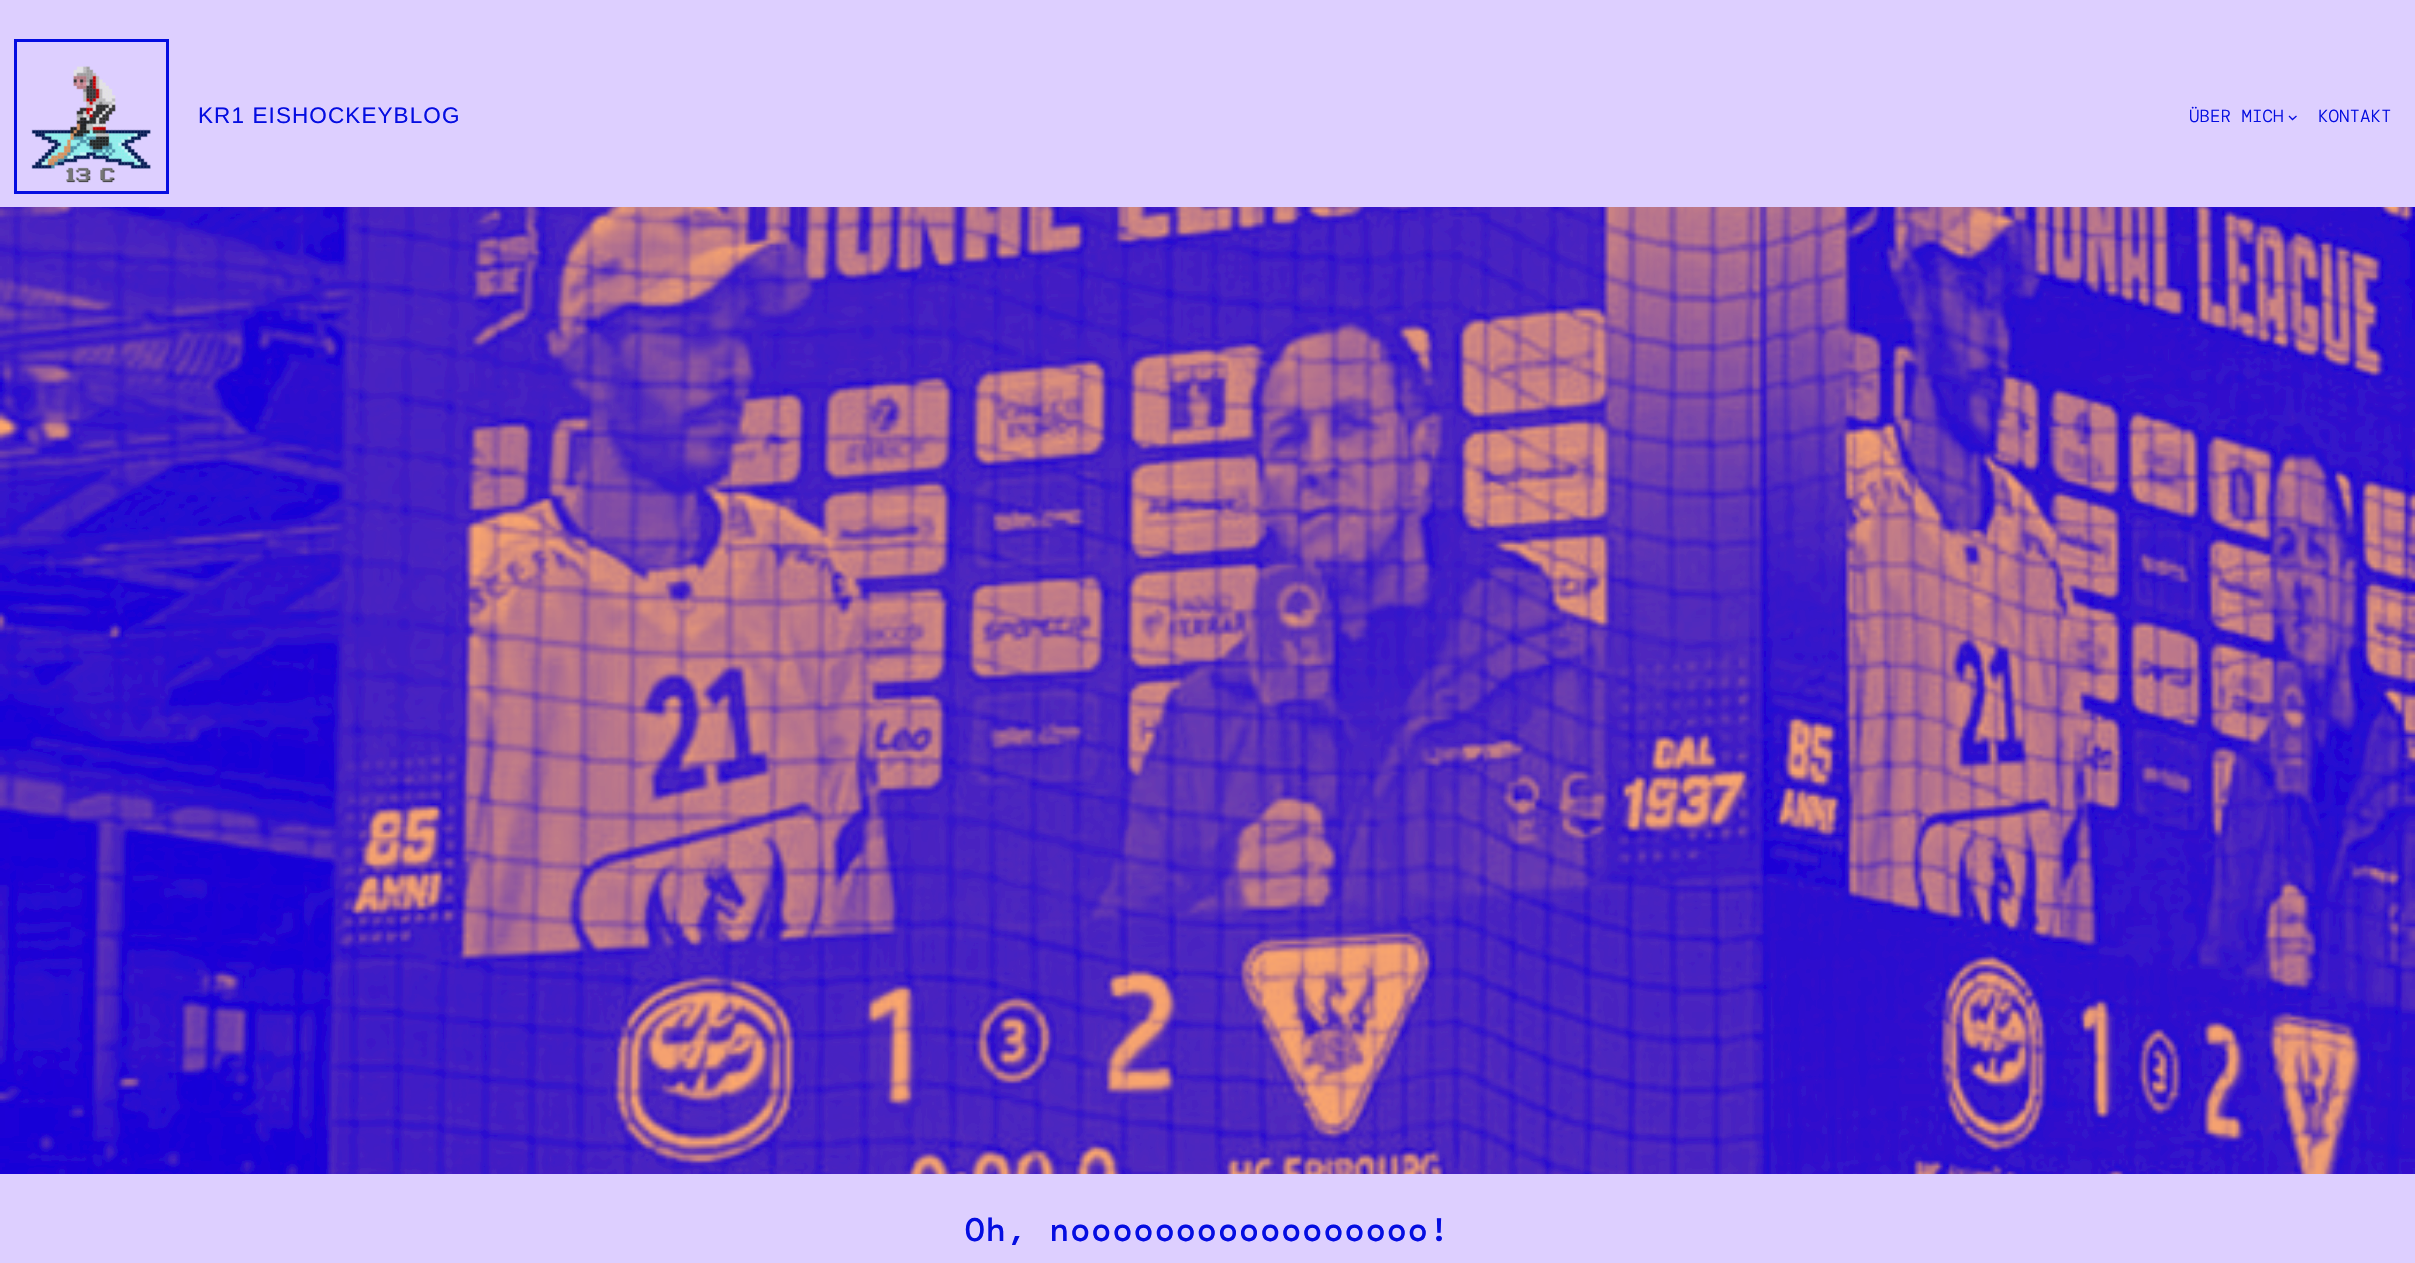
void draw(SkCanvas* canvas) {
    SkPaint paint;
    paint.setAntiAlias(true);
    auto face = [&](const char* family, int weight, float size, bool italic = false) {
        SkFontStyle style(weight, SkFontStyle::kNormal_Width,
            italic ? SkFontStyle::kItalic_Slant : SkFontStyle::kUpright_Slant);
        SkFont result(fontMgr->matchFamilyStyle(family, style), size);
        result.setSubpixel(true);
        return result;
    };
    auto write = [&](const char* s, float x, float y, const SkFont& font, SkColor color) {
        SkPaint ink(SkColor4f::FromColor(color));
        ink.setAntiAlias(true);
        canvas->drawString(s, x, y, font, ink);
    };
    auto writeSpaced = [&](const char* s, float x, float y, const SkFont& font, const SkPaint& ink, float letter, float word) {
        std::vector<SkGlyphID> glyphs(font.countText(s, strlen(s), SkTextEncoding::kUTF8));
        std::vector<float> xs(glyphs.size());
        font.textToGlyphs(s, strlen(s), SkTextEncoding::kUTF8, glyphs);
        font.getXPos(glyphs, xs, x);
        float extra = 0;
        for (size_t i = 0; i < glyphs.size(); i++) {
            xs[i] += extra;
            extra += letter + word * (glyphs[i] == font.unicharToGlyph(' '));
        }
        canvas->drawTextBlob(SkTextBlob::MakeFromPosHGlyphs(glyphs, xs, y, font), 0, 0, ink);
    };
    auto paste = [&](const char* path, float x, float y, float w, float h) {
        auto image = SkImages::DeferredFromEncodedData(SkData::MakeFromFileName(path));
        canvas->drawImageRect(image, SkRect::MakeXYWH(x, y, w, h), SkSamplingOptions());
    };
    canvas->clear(SkColorSetRGB(221, 207, 255));
    paint.setStyle(SkPaint::kStroke_Style);
    paint.setStrokeWidth(3);
    paint.setColor(SkColorSetRGB(4, 13, 225));
    canvas->drawRect(SkRect::MakeXYWH(15.5f, 40.5f, 152, 152), paint);
    paste("pic1.png", 31, 66, 120, 117);
    auto kFont1 = face("Liberation Sans", 400, 22.5f);
    paint.setStyle(SkPaint::kFill_Style);
    writeSpaced("KR1 EISHOCKEYBLOG", 198, 123, kFont1, paint, 1.1f, 0);
    auto kFont2 = face("DM Mono", 300, 17.5f);
    write("ÜBER MICH", 2189, 122, kFont2, SkColorSetRGB(4, 13, 225));
    paint.setStyle(SkPaint::kStroke_Style);
    paint.setStrokeWidth(1.3f);
    canvas->drawPath(SkPathBuilder().moveTo(2289, 116).lineTo(2292.5f, 119.5f).lineTo(2296.5f, 116).detach(), paint);
    write("KONTAKT", 2318, 122, kFont2, SkColorSetRGB(4, 13, 225));
    paste("pic2.png", 0, 207, 2415, 967);
    auto kFont3 = face("DM Mono", 500, 32.5f);
    paint.setStyle(SkPaint::kFill_Style);
    writeSpaced("Oh, nooooooooooooooooo!", 965, 1241, kFont3, paint, 1.6f, 0);
}
